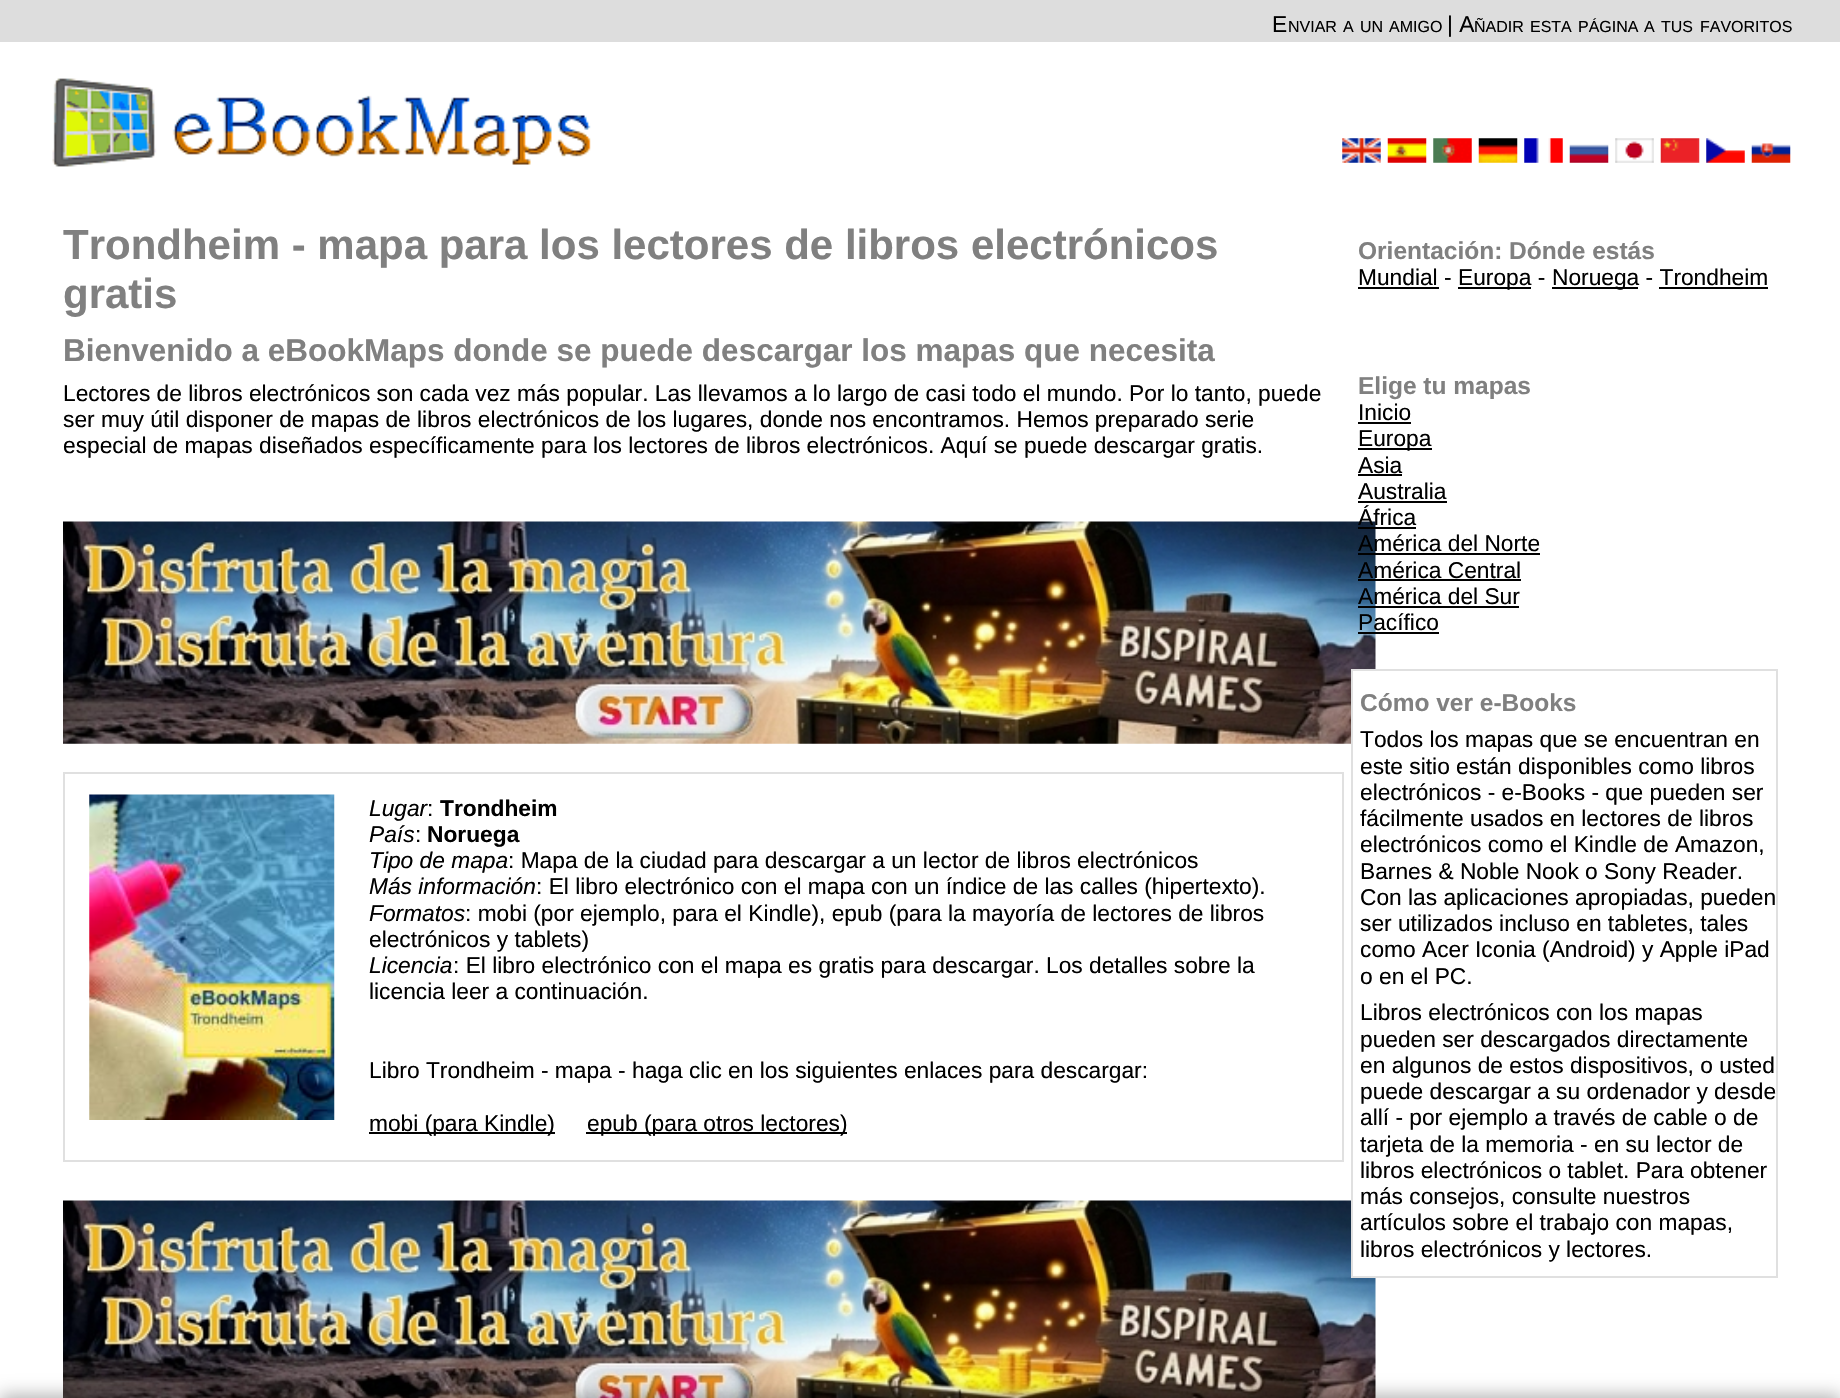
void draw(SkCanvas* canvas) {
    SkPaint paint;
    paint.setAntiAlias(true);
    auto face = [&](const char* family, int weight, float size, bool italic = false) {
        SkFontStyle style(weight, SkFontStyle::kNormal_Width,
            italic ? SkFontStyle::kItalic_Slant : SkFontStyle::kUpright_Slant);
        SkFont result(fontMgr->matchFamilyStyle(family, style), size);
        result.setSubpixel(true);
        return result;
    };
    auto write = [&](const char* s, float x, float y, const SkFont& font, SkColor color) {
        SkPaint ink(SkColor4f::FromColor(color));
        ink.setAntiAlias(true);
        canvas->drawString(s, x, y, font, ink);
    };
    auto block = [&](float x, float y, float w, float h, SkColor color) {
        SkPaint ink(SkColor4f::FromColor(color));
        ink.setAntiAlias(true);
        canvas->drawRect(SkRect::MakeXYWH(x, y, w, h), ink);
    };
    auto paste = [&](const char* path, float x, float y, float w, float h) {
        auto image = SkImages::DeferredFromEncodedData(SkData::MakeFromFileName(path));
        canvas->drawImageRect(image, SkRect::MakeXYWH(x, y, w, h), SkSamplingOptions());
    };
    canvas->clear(SK_ColorWHITE);
    block(0, 0, 1840, 42, SkColorSetRGB(221, 221, 221));
    auto kFont1 = face("Liberation Sans", 400, 22.75f);
    write("E", 1272, 32, kFont1, SK_ColorBLACK);
    auto kFont2 = face("Liberation Sans", 400, 16);
    write("NVIAR", 1288, 32, kFont2, SK_ColorBLACK);
    write("A", 1343, 32, kFont2, SK_ColorBLACK);
    write("UN", 1360, 32, kFont2, SK_ColorBLACK);
    write("AMIGO", 1389, 32, kFont2, SK_ColorBLACK);
    write("| A", 1447, 32, kFont1, SK_ColorBLACK);
    write("ÑADIR", 1474, 32, kFont2, SK_ColorBLACK);
    write("ESTA", 1530, 32, kFont2, SK_ColorBLACK);
    write("PÁGINA", 1578, 32, kFont2, SK_ColorBLACK);
    write("A", 1644, 32, kFont2, SK_ColorBLACK);
    write("TUS", 1661, 32, kFont2, SK_ColorBLACK);
    write("FAVORITOS", 1700, 32, kFont2, SK_ColorBLACK);
    paste("pic1.png", 52, 78, 539, 89);
    paste("pic2.png", 1342, 138, 39, 25);
    paste("pic3.png", 1387, 138, 40, 25);
    paste("pic4.png", 1433, 138, 39, 25);
    paste("pic5.png", 1478, 138, 40, 25);
    paste("pic6.png", 1524, 138, 39, 25);
    paste("pic7.png", 1569, 144, 40, 19);
    paste("pic8.png", 1615, 138, 39, 25);
    paste("pic9.png", 1660, 138, 40, 25);
    paste("pic10.png", 1706, 138, 39, 25);
    paste("pic11.png", 1751, 143, 40, 20);
    auto kFont3 = face("Liberation Sans", 700, 42);
    write("Trondheim - mapa para los lectores de libros electrónicos", 63, 259, kFont3, SkColorSetRGB(128, 128, 128));
    write("gratis", 63, 308, kFont3, SkColorSetRGB(128, 128, 128));
    auto kFont4 = face("Liberation Sans", 700, 31.5f);
    write("Bienvenido a eBookMaps donde se puede descargar los mapas que necesita", 63, 361, kFont4, SkColorSetRGB(128, 128, 128));
    write("Lectores de libros electrónicos son cada vez más popular. Las llevamos a lo largo de casi todo el mundo. Por lo tanto, puede", 63, 401, kFont1, SK_ColorBLACK);
    write("ser muy útil disponer de mapas de libros electrónicos de los lugares, donde nos encontramos. Hemos preparado serie", 63, 427, kFont1, SK_ColorBLACK);
    write("especial de mapas diseñados específicamente para los lectores de libros electrónicos. Aquí se puede descargar gratis.", 63, 453, kFont1, SK_ColorBLACK);
    paste("pic12.png", 63, 521, 1313, 223);
    paint.setStyle(SkPaint::kStroke_Style);
    paint.setStrokeWidth(2);
    paint.setColor(SkColorSetRGB(224, 224, 224));
    canvas->drawRect(SkRect::MakeXYWH(64, 773, 1279, 388), paint);
    paste("pic13.png", 89, 794, 246, 326);
    auto kFont5 = face("Liberation Sans", 400, 22.75f, true);
    write("Lugar", 369, 816, kFont5, SK_ColorBLACK);
    write(":", 427, 816, kFont1, SK_ColorBLACK);
    auto kFont6 = face("Liberation Sans", 700, 22.75f);
    write("Trondheim", 440, 816, kFont6, SK_ColorBLACK);
    write("País", 369, 842, kFont5, SK_ColorBLACK);
    write(":", 415, 842, kFont1, SK_ColorBLACK);
    write("Noruega", 427, 842, kFont6, SK_ColorBLACK);
    write("Tipo de mapa", 369, 868, kFont5, SK_ColorBLACK);
    write(": Mapa de la ciudad para descargar a un lector de libros electrónicos", 508, 868, kFont1, SK_ColorBLACK);
    write("Más información", 369, 894, kFont5, SK_ColorBLACK);
    write(": El libro electrónico con el mapa con un índice de las calles (hipertexto).", 536, 894, kFont1, SK_ColorBLACK);
    write("Formatos", 369, 921, kFont5, SK_ColorBLACK);
    write(": mobi (por ejemplo, para el Kindle), epub (para la mayoría de lectores de libros", 465, 921, kFont1, SK_ColorBLACK);
    write("electrónicos y tablets)", 369, 947, kFont1, SK_ColorBLACK);
    write("Licencia", 369, 973, kFont5, SK_ColorBLACK);
    write(": El libro electrónico con el mapa es gratis para descargar. Los detalles sobre la", 453, 973, kFont1, SK_ColorBLACK);
    write("licencia leer a continuación.", 369, 999, kFont1, SK_ColorBLACK);
    write("Libro Trondheim - mapa - haga clic en los siguientes enlaces para descargar:", 369, 1078, kFont1, SK_ColorBLACK);
    block(369, 1132, 186, 2, SK_ColorBLACK);
    write("mobi (para Kindle)", 369, 1131, kFont1, SK_ColorBLACK);
    block(586, 1132, 261, 2, SK_ColorBLACK);
    write("epub (para otros lectores)", 587, 1131, kFont1, SK_ColorBLACK);
    paste("pic14.png", 63, 1200, 1313, 198);
    auto kFont7 = face("Liberation Sans", 700, 24.5f);
    write("Orientación: Dónde estás", 1358, 259, kFont7, SkColorSetRGB(128, 128, 128));
    write("Mundial -", 1358, 285, kFont1, SK_ColorBLACK);
    block(1358, 287, 81, 2, SK_ColorBLACK);
    block(1458, 287, 73, 2, SK_ColorBLACK);
    write("Europa -", 1458, 285, kFont1, SK_ColorBLACK);
    block(1552, 287, 86, 2, SK_ColorBLACK);
    write("Noruega - Trondheim", 1552, 285, kFont1, SK_ColorBLACK);
    block(1659, 287, 109, 2, SK_ColorBLACK);
    write("Elige tu mapas", 1358, 394, kFont7, SkColorSetRGB(128, 128, 128));
    write("Inicio", 1358, 420, kFont1, SK_ColorBLACK);
    block(1358, 422, 53, 2, SK_ColorBLACK);
    block(1358, 448, 74, 2, SK_ColorBLACK);
    write("Europa", 1358, 446, kFont1, SK_ColorBLACK);
    write("Asia", 1358, 473, kFont1, SK_ColorBLACK);
    block(1358, 474, 44, 2, SK_ColorBLACK);
    write("Australia", 1358, 499, kFont1, SK_ColorBLACK);
    block(1358, 501, 89, 2, SK_ColorBLACK);
    write("África", 1358, 525, kFont1, SK_ColorBLACK);
    block(1358, 527, 58, 2, SK_ColorBLACK);
    write("América del Norte", 1358, 551, kFont1, SK_ColorBLACK);
    block(1358, 553, 182, 2, SK_ColorBLACK);
    write("América Central", 1358, 578, kFont1, SK_ColorBLACK);
    block(1358, 579, 163, 2, SK_ColorBLACK);
    write("América del Sur", 1358, 604, kFont1, SK_ColorBLACK);
    block(1358, 606, 161, 2, SK_ColorBLACK);
    write("Pacífico", 1358, 630, kFont1, SK_ColorBLACK);
    block(1358, 632, 81, 2, SK_ColorBLACK);
    block(1353, 671, 23, 605, SK_ColorWHITE);
    canvas->drawRect(SkRect::MakeXYWH(1352, 670, 425, 607), paint);
    write("Cómo ver e-Books", 1360, 711, kFont7, SkColorSetRGB(128, 128, 128));
    write("Todos los mapas que se encuentran en", 1360, 747, kFont1, SK_ColorBLACK);
    write("este sitio están disponibles como libros", 1360, 774, kFont1, SK_ColorBLACK);
    write("electrónicos - e-Books - que pueden ser", 1360, 800, kFont1, SK_ColorBLACK);
    write("fácilmente usados en lectores de libros", 1360, 826, kFont1, SK_ColorBLACK);
    write("electrónicos como el Kindle de Amazon,", 1360, 852, kFont1, SK_ColorBLACK);
    write("Barnes & Noble Nook o Sony Reader.", 1360, 879, kFont1, SK_ColorBLACK);
    write("Con las aplicaciones apropiadas, pueden", 1360, 905, kFont1, SK_ColorBLACK);
    write("ser utilizados incluso en tabletes, tales", 1360, 931, kFont1, SK_ColorBLACK);
    write("como Acer Iconia (Android) y Apple iPad", 1360, 957, kFont1, SK_ColorBLACK);
    write("o en el PC.", 1360, 984, kFont1, SK_ColorBLACK);
    write("Libros electrónicos con los mapas", 1360, 1020, kFont1, SK_ColorBLACK);
    write("pueden ser descargados directamente", 1360, 1047, kFont1, SK_ColorBLACK);
    write("en algunos de estos dispositivos, o usted", 1360, 1073, kFont1, SK_ColorBLACK);
    write("puede descargar a su ordenador y desde", 1360, 1099, kFont1, SK_ColorBLACK);
    write("allí - por ejemplo a través de cable o de", 1360, 1125, kFont1, SK_ColorBLACK);
    write("tarjeta de la memoria - en su lector de", 1360, 1152, kFont1, SK_ColorBLACK);
    write("libros electrónicos o tablet. Para obtener", 1360, 1178, kFont1, SK_ColorBLACK);
    write("más consejos, consulte nuestros", 1360, 1204, kFont1, SK_ColorBLACK);
    write("artículos sobre el trabajo con mapas,", 1360, 1230, kFont1, SK_ColorBLACK);
    write("libros electrónicos y lectores.", 1360, 1257, kFont1, SK_ColorBLACK);
    paint.setStyle(SkPaint::kFill_Style);
    paint.setColor(SkColorSetARGB(77, 0, 0, 0));
    paint.setMaskFilter(SkMaskFilter::MakeBlur(kNormal_SkBlurStyle, 9));
    canvas->drawRect(SkRect::MakeXYWH(0, 1395, 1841, 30), paint);
    paint.setMaskFilter(nullptr);
}
